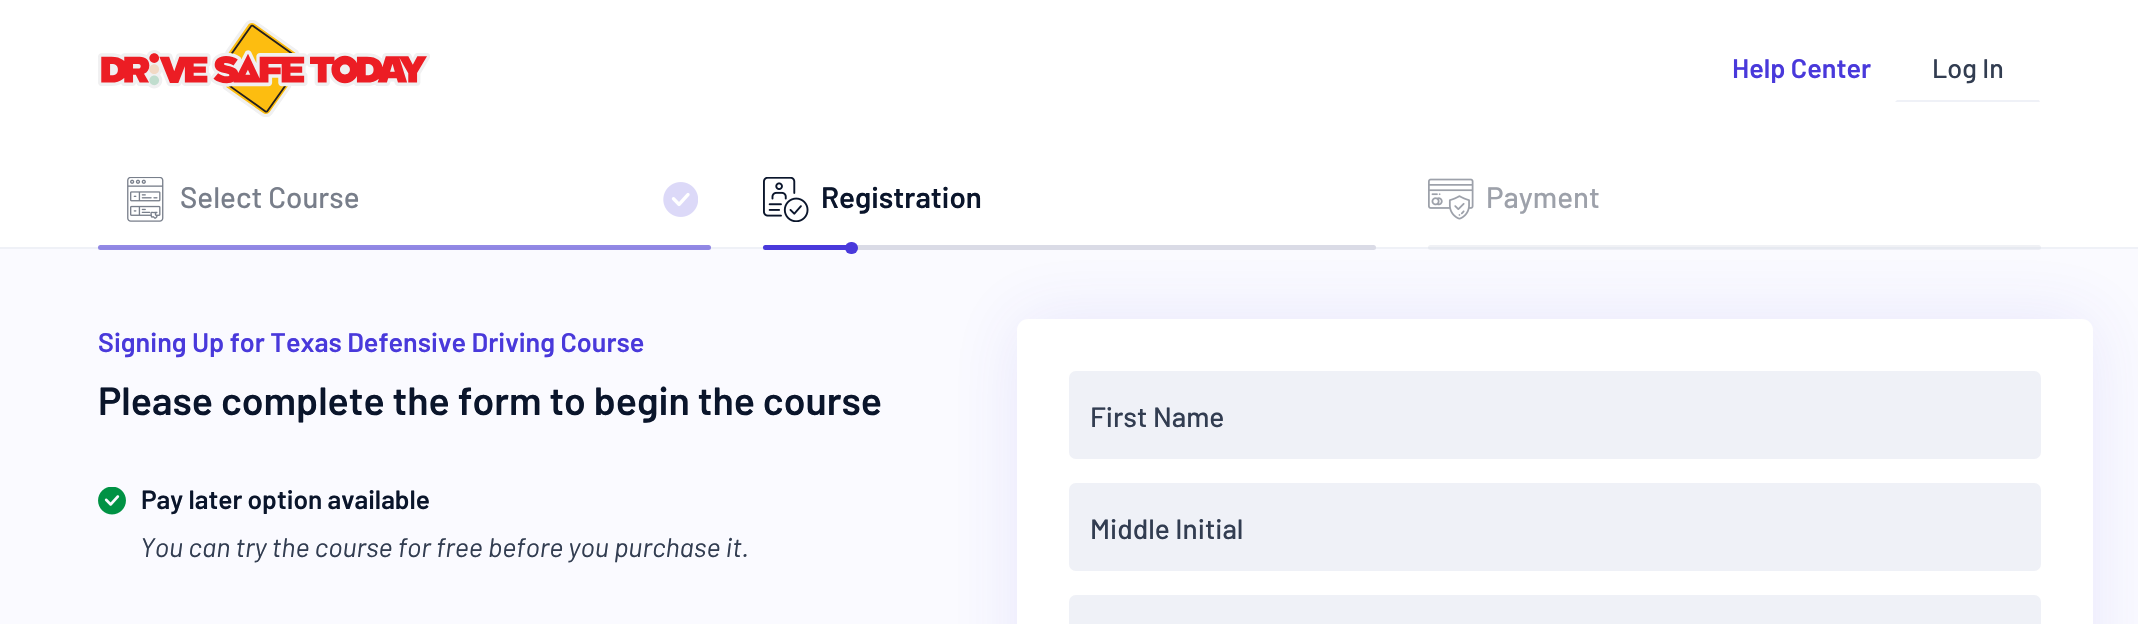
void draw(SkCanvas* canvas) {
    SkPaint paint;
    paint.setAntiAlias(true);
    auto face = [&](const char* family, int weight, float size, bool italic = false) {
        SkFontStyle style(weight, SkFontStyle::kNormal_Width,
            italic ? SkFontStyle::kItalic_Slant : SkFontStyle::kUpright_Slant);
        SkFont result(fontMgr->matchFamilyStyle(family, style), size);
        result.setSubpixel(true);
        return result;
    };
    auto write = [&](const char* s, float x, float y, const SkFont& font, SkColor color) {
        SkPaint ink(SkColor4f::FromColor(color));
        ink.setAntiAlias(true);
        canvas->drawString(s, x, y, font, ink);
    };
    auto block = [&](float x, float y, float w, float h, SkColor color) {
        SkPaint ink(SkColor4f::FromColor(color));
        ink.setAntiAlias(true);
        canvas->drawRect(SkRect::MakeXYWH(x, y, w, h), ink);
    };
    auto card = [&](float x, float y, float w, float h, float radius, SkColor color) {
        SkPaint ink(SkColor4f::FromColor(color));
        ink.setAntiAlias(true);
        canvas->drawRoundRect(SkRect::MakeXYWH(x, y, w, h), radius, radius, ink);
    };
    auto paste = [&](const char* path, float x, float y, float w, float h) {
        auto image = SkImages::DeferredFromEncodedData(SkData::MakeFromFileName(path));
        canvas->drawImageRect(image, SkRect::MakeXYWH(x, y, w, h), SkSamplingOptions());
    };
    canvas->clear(SK_ColorWHITE);
    paste("pic1.png", 98, 20, 332, 97);
    auto kFont1 = face("Barlow", 600, 26.95f);
    write("Help Center", 1732, 78, kFont1, SkColorSetRGB(73, 57, 219));
    paint.setColor(SkColorSetRGB(239, 241, 247));
    canvas->drawPath(SkPathBuilder().moveTo(2040, 102).lineTo(1895, 102).lineTo(1897, 100).lineTo(2039, 100).close().detach(), paint);
    auto kFont2 = face("Barlow", 500, 26.95f);
    write("Log In", 1932, 78, kFont2, SkColorSetRGB(50, 61, 81));
    paste("pic2.png", 127, 177, 37, 45);
    auto kFont3 = face("Barlow", 500, 29.5f);
    write("Select Course", 180, 208, kFont3, SkColorSetRGB(120, 126, 138));
    paste("pic3.png", 663, 182, 35, 35);
    block(0, 249, 2138, 375, SkColorSetRGB(250, 250, 255));
    paint.setColor(SkColorSetARGB(26, 73, 57, 219));
    paint.setMaskFilter(SkMaskFilter::MakeBlur(kNormal_SkBlurStyle, 35));
    canvas->drawRoundRect(SkRect::MakeXYWH(1017, 319, 1076, 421), 11, 11, paint);
    paint.setMaskFilter(nullptr);
    block(0, 247, 2138, 2, SkColorSetRGB(239, 241, 247));
    card(98, 245, 613, 5, 2.5f, SkColorSetARGB(140, 218, 219, 230));
    card(98, 245, 613, 5, 2.5f, SkColorSetARGB(140, 73, 57, 219));
    paste("pic4.png", 763, 177, 46, 45);
    auto kFont4 = face("Barlow", 600, 29.5f);
    write("Registration", 821, 208, kFont4, SkColorSetRGB(10, 21, 43));
    card(763, 245, 613, 5, 2.5f, SkColorSetRGB(218, 219, 230));
    card(763, 245, 86, 5, 2.5f, SkColorSetRGB(73, 57, 219));
    card(845, 242, 13, 12, 6, SkColorSetRGB(73, 57, 219));
    paste("pic5.png", 1428, 178, 46, 42);
    write("Payment", 1486, 208, kFont3, SkColorSetRGB(157, 161, 170));
    card(1428, 245, 613, 5, 2.5f, SkColorSetARGB(102, 218, 219, 230));
    write("Signing Up for Texas Defensive Driving Course", 98, 352, kFont1, SkColorSetRGB(73, 57, 219));
    auto kFont5 = face("Barlow", 600, 39.25f);
    write("Please complete the form to begin the course", 98, 415, kFont5, SkColorSetRGB(10, 21, 43));
    paste("pic6.png", 98, 487, 28, 28);
    auto kFont6 = face("Barlow", 600, 26.25f);
    write("Pay later option available", 141, 509, kFont6, SkColorSetRGB(10, 21, 43));
    auto kFont7 = face("Barlow", 400, 26.95f, true);
    write("You can try the course for free before you purchase it.", 140, 557, kFont7, SkColorSetRGB(50, 61, 81));
    card(1017, 319, 1076, 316, 11, SK_ColorWHITE);
    card(1069, 371, 972, 88, 7, SkColorSetRGB(239, 241, 247));
    auto kFont8 = face("Barlow", 500, 28);
    write("First Name", 1090, 427, kFont8, SkColorSetRGB(50, 61, 81));
    card(1069, 483, 972, 88, 7, SkColorSetRGB(239, 241, 247));
    write("Middle Initial", 1090, 539, kFont8, SkColorSetRGB(50, 61, 81));
    card(1069, 595, 972, 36, 7, SkColorSetRGB(239, 241, 247));
}
